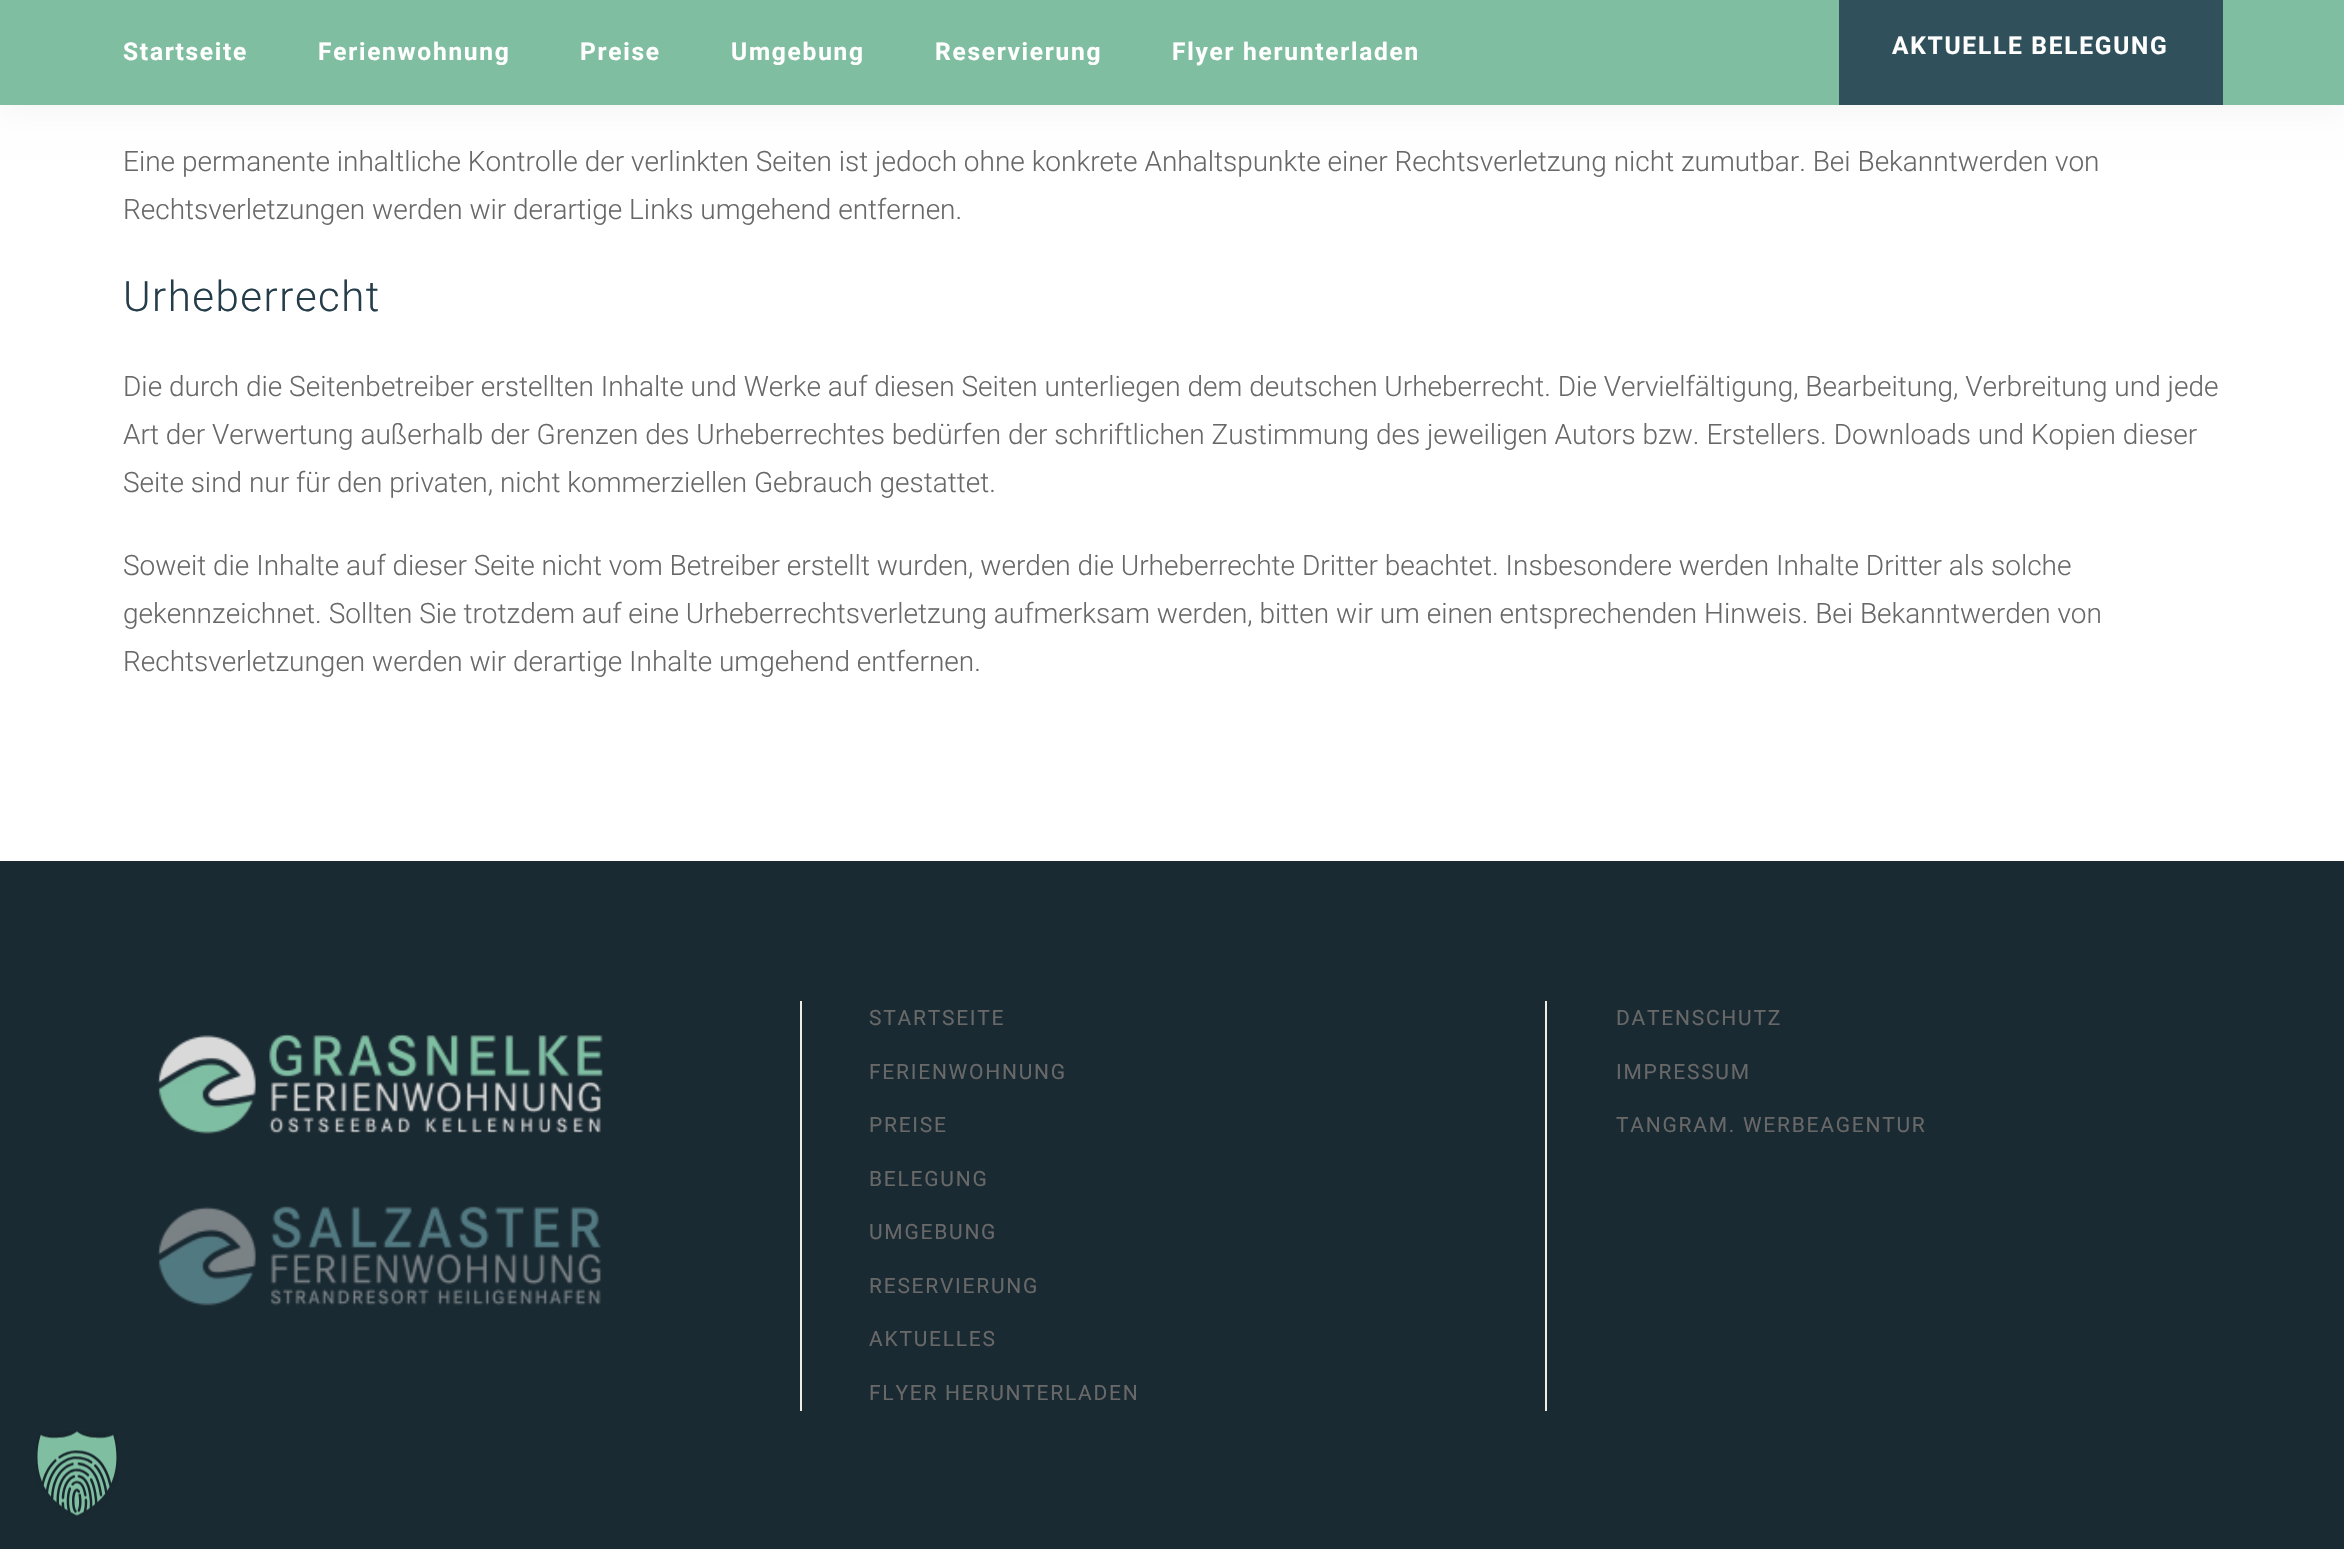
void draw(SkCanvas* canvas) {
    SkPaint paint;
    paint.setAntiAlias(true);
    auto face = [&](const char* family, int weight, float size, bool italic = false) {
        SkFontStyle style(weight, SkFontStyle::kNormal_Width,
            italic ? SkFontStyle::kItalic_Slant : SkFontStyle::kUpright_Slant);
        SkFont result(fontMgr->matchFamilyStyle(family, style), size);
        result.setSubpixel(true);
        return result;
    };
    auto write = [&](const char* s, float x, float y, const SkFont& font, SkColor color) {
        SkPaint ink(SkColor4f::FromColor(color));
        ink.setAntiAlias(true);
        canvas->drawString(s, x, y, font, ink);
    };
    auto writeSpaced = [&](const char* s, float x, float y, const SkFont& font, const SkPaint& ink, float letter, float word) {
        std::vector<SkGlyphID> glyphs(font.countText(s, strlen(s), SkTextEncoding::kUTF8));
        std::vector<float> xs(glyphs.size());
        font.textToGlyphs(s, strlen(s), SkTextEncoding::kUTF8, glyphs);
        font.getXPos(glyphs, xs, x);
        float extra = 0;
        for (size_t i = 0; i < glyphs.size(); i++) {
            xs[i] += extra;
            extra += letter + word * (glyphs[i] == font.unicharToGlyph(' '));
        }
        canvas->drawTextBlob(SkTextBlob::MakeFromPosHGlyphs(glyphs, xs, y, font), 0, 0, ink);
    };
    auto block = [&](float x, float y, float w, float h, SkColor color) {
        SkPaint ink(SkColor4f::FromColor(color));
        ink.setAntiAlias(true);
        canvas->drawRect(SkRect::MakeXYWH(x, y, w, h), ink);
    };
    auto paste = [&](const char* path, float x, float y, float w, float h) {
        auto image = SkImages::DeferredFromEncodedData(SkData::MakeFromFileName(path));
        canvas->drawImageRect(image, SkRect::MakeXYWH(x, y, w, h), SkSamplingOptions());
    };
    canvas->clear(SK_ColorWHITE);
    paint.setColor(SkColorSetARGB(10, 0, 0, 0));
    paint.setMaskFilter(SkMaskFilter::MakeBlur(kNormal_SkBlurStyle, 16));
    canvas->drawRect(SkRect::MakeXYWH(0, 7, 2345, 105), paint);
    paint.setMaskFilter(nullptr);
    block(0, 0, 2344, 105, SkColorSetRGB(127, 190, 160));
    auto kFont1 = face("Roboto", 700, 24.5f);
    paint.setColor(SK_ColorWHITE);
    writeSpaced("Startseite", 123, 60, kFont1, paint, 1.75f, 0);
    writeSpaced("Ferienwohnung", 318, 60, kFont1, paint, 1.75f, 0);
    writeSpaced("Preise", 580, 60, kFont1, paint, 1.75f, 0);
    writeSpaced("Umgebung", 731, 60, kFont1, paint, 1.75f, 0);
    writeSpaced("Reservierung", 935, 60, kFont1, paint, 1.75f, 0);
    writeSpaced("Flyer herunterladen", 1172, 60, kFont1, paint, 1.75f, 0);
    block(1839, 0, 384, 105, SkColorSetRGB(48, 80, 91));
    writeSpaced("AKTUELLE BELEGUNG", 1892, 54, kFont1, paint, 1.75f, 0);
    auto kFont2 = face("Roboto", 300, 28);
    write("Eine permanente inhaltliche Kontrolle der verlinkten Seiten ist jedoch ohne konkrete Anhaltspunkte einer Rechtsverletzung nicht zumutbar. Bei Bekanntwerden von", 123, 171, kFont2, SkColorSetRGB(104, 104, 104));
    write("Rechtsverletzungen werden wir derartige Links umgehend entfernen.", 123, 219, kFont2, SkColorSetRGB(104, 104, 104));
    auto kFont3 = face("Roboto", 300, 42);
    paint.setColor(SkColorSetRGB(37, 61, 74));
    writeSpaced("Urheberrecht", 123, 311, kFont3, paint, 1.5f, 0);
    write("Die durch die Seitenbetreiber erstellten Inhalte und Werke auf diesen Seiten unterliegen dem deutschen Urheberrecht. Die Vervielfältigung, Bearbeitung, Verbreitung und jede", 123, 396, kFont2, SkColorSetRGB(104, 104, 104));
    write("Art der Verwertung außerhalb der Grenzen des Urheberrechtes bedürfen der schriftlichen Zustimmung des jeweiligen Autors bzw. Erstellers. Downloads und Kopien dieser", 123, 444, kFont2, SkColorSetRGB(104, 104, 104));
    write("Seite sind nur für den privaten, nicht kommerziellen Gebrauch gestattet.", 123, 492, kFont2, SkColorSetRGB(104, 104, 104));
    write("Soweit die Inhalte auf dieser Seite nicht vom Betreiber erstellt wurden, werden die Urheberrechte Dritter beachtet. Insbesondere werden Inhalte Dritter als solche", 123, 575, kFont2, SkColorSetRGB(104, 104, 104));
    write("gekennzeichnet. Sollten Sie trotzdem auf eine Urheberrechtsverletzung aufmerksam werden, bitten wir um einen entsprechenden Hinweis. Bei Bekanntwerden von", 123, 623, kFont2, SkColorSetRGB(104, 104, 104));
    write("Rechtsverletzungen werden wir derartige Inhalte umgehend entfernen.", 123, 671, kFont2, SkColorSetRGB(104, 104, 104));
    block(0, 861, 2344, 688, SkColorSetRGB(26, 42, 50));
    paste("pic1.png", 157, 1033, 446, 101);
    paste("pic2.png", 157, 1206, 444, 100);
    block(800, 1001, 2, 410, SkColorSetRGB(240, 235, 227));
    auto kFont4 = face("Roboto", 400, 21);
    paint.setColor(SkColorSetRGB(104, 104, 104));
    writeSpaced("STARTSEITE", 869, 1025, kFont4, paint, 1.75f, 0);
    writeSpaced("FERIENWOHNUNG", 869, 1079, kFont4, paint, 1.75f, 0);
    writeSpaced("PREISE", 869, 1132, kFont4, paint, 1.75f, 0);
    writeSpaced("BELEGUNG", 869, 1186, kFont4, paint, 1.75f, 0);
    writeSpaced("UMGEBUNG", 869, 1239, kFont4, paint, 1.75f, 0);
    writeSpaced("RESERVIERUNG", 869, 1293, kFont4, paint, 1.75f, 0);
    writeSpaced("AKTUELLES", 869, 1346, kFont4, paint, 1.75f, 0);
    writeSpaced("FLYER HERUNTERLADEN", 869, 1400, kFont4, paint, 1.75f, 0);
    block(1545, 1001, 2, 410, SkColorSetRGB(240, 235, 227));
    writeSpaced("DATENSCHUTZ", 1616, 1025, kFont4, paint, 1.75f, 0);
    writeSpaced("IMPRESSUM", 1616, 1079, kFont4, paint, 1.75f, 0);
    writeSpaced("TANGRAM. WERBEAGENTUR", 1616, 1132, kFont4, paint, 1.75f, 0);
    paste("pic3.png", 36, 1431, 82, 85);
}
